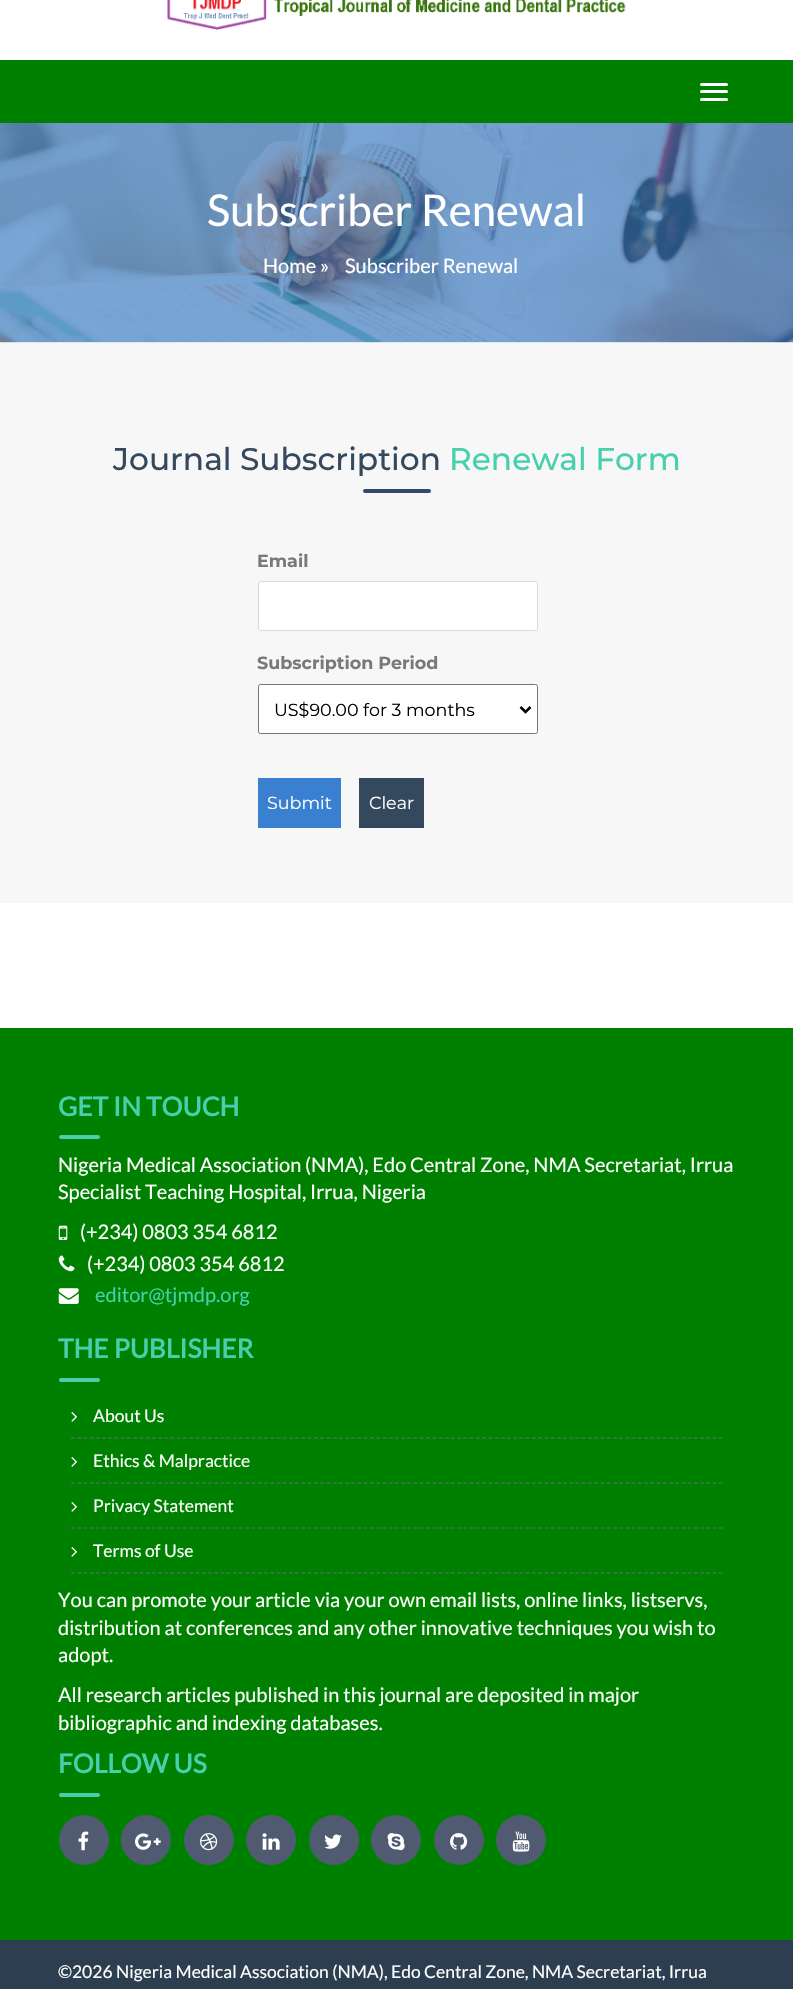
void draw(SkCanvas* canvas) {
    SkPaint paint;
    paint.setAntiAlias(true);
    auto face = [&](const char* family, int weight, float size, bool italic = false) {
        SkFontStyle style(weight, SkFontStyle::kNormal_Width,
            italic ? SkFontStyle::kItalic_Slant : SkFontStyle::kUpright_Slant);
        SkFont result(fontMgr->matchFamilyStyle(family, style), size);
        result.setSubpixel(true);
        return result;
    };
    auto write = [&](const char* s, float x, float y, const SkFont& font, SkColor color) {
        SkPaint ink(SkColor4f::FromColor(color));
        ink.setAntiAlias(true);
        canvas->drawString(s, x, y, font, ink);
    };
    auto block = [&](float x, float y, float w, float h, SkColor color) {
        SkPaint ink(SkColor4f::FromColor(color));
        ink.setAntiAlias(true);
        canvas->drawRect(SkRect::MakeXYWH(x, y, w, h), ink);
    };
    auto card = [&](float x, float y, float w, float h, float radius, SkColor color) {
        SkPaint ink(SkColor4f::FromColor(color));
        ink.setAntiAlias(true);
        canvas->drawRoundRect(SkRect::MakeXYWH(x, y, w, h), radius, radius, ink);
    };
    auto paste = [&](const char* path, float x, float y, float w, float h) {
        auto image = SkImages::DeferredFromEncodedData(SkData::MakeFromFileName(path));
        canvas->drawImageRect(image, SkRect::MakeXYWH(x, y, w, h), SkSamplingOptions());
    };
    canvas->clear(SK_ColorWHITE);
    paste("pic1.png", 167, 0, 459, 31);
    block(0, 60, 793, 63, SkColorSetRGB(0, 128, 0));
    card(700, 83, 28, 3, 1.5f, SK_ColorWHITE);
    card(700, 90, 28, 3, 1.5f, SK_ColorWHITE);
    card(700, 98, 28, 3, 1.5f, SK_ColorWHITE);
    paste("pic2.png", 0, 123, 793, 220);
    auto kFont1 = face("Lato", 400, 43.75f);
    write("Subscriber Renewal", 207, 226, kFont1, SK_ColorWHITE);
    auto kFont2 = face("Lato", 400, 20);
    write("Home »", 263, 273, kFont2, SK_ColorWHITE);
    write("Subscriber Renewal", 345, 273, kFont2, SK_ColorWHITE);
    block(0, 343, 793, 560, SkColorSetRGB(247, 247, 247));
    auto kFont3 = face("Montserrat", 500, 31.25f);
    write("Journal Subscription", 113, 470, kFont3, SkColorSetRGB(52, 73, 94));
    write("Renewal Form", 449, 470, kFont3, SkColorSetRGB(72, 207, 173));
    card(363, 489, 68, 4, 2, SkColorSetRGB(52, 73, 114));
    auto kFont4 = face("Montserrat", 700, 17.5f);
    write("Email", 257, 567, kFont4, SkColorSetRGB(121, 121, 121));
    paint.setColor(SK_ColorWHITE);
    canvas->drawRoundRect(SkRect::MakeXYWH(258.5f, 581.5f, 279, 49), 2, 2, paint);
    paint.setStyle(SkPaint::kStroke_Style);
    paint.setStrokeWidth(1);
    paint.setColor(SkColorSetRGB(217, 217, 217));
    canvas->drawRoundRect(SkRect::MakeXYWH(258.5f, 581.5f, 279, 49), 2, 2, paint);
    write("Subscription Period", 257, 669, kFont4, SkColorSetRGB(121, 121, 121));
    paint.setStyle(SkPaint::kFill_Style);
    paint.setColor(SK_ColorWHITE);
    canvas->drawRoundRect(SkRect::MakeXYWH(258.5f, 684.5f, 279, 49), 2, 2, paint);
    paint.setStyle(SkPaint::kStroke_Style);
    paint.setColor(SkColorSetRGB(118, 118, 118));
    canvas->drawRoundRect(SkRect::MakeXYWH(258.5f, 684.5f, 279, 49), 2, 2, paint);
    paint.setStrokeWidth(2.5f);
    paint.setColor(SK_ColorBLACK);
    canvas->drawPath(SkPathBuilder().moveTo(520.5f, 707).lineTo(525.5f, 712).lineTo(530.5f, 707).detach(), paint);
    auto kFont5 = face("Montserrat", 400, 17.5f);
    write("US$90.00 for 3 months", 274, 716, kFont5, SK_ColorBLACK);
    block(258, 778, 83, 50, SkColorSetRGB(58, 128, 209));
    write("Submit", 267, 809, kFont5, SK_ColorWHITE);
    block(359, 778, 65, 50, SkColorSetRGB(52, 73, 94));
    write("Clear", 369, 809, kFont5, SK_ColorWHITE);
    block(0, 1028, 793, 912, SkColorSetRGB(0, 128, 0));
    auto kFont6 = face("Lato", 700, 26.25f);
    write("GET IN TOUCH", 58, 1116, kFont6, SkColorSetRGB(72, 207, 173));
    card(59, 1135, 41, 4, 2, SkColorSetRGB(72, 207, 173));
    write("Nigeria Medical Association (NMA), Edo Central Zone, NMA Secretariat, Irrua", 58, 1172, kFont2, SK_ColorWHITE);
    write("Specialist Teaching Hospital, Irrua, Nigeria", 58, 1199, kFont2, SK_ColorWHITE);
    paste("pic3.png", 58, 1225, 10, 15);
    write("(+234) 0803 354 6812", 80, 1239, kFont2, SK_ColorWHITE);
    paste("pic4.png", 58, 1255, 17, 17);
    write("(+234) 0803 354 6812", 87, 1271, kFont2, SK_ColorWHITE);
    paste("pic5.png", 58, 1288, 21, 16);
    write("editor@tjmdp.org", 95, 1302, kFont2, SkColorSetRGB(72, 207, 173));
    write("THE PUBLISHER", 58, 1358, kFont6, SkColorSetRGB(72, 207, 173));
    card(59, 1378, 41, 4, 2, SkColorSetRGB(72, 207, 173));
    paint.setStrokeWidth(1.2f);
    paint.setColor(SkColorSetRGB(99, 111, 121));
    paint.setPathEffect(SkDashPathEffect::Make({{3.75f, 2.48f}}, 0));
    canvas->drawPath(SkPathBuilder().moveTo(71, 1438).lineTo(722.5f, 1438).detach(), paint);
    paint.setPathEffect(nullptr);
    paste("pic6.png", 71, 1412, 6, 10);
    auto kFont7 = face("Lato", 400, 17.5f);
    write("About Us", 93, 1422, kFont7, SK_ColorWHITE);
    paint.setPathEffect(SkDashPathEffect::Make({{3.75f, 2.48f}}, 0));
    canvas->drawPath(SkPathBuilder().moveTo(71, 1483).lineTo(722.5f, 1483).detach(), paint);
    paint.setPathEffect(nullptr);
    paste("pic6.png", 71, 1457, 6, 10);
    write("Ethics & Malpractice", 93, 1467, kFont7, SK_ColorWHITE);
    paint.setPathEffect(SkDashPathEffect::Make({{3.75f, 2.48f}}, 0));
    canvas->drawPath(SkPathBuilder().moveTo(71, 1528).lineTo(722.5f, 1528).detach(), paint);
    paint.setPathEffect(nullptr);
    paste("pic6.png", 71, 1502, 6, 10);
    write("Privacy Statement", 93, 1512, kFont7, SK_ColorWHITE);
    paint.setPathEffect(SkDashPathEffect::Make({{3.75f, 2.48f}}, 0));
    canvas->drawPath(SkPathBuilder().moveTo(71, 1573).lineTo(722.5f, 1573).detach(), paint);
    paint.setPathEffect(nullptr);
    paste("pic6.png", 71, 1547, 6, 10);
    write("Terms of Use", 93, 1557, kFont7, SK_ColorWHITE);
    write("You can promote your article via your own email lists, online links, listservs,", 58, 1607, kFont2, SK_ColorWHITE);
    write("distribution at conferences and any other innovative techniques you wish to", 58, 1635, kFont2, SK_ColorWHITE);
    write("adopt.", 58, 1662, kFont2, SK_ColorWHITE);
    write("All research articles published in this journal are deposited in major", 58, 1702, kFont2, SK_ColorWHITE);
    write("bibliographic and indexing databases.", 58, 1730, kFont2, SK_ColorWHITE);
    write("FOLLOW US", 58, 1773, kFont6, SkColorSetRGB(72, 207, 173));
    card(59, 1793, 41, 4, 2, SkColorSetRGB(72, 207, 173));
    paint.setStyle(SkPaint::kFill_Style);
    paint.setColor(SkColorSetRGB(80, 91, 113));
    canvas->drawCircle(84, 1840, 25, paint);
    paste("pic7.png", 78, 1831, 11, 20);
    canvas->drawCircle(146, 1840, 25, paint);
    paste("pic8.png", 135, 1833, 26, 17);
    canvas->drawCircle(209, 1840, 25, paint);
    paste("pic9.png", 200, 1833, 18, 18);
    canvas->drawCircle(271, 1840, 25, paint);
    paste("pic10.png", 262, 1833, 18, 17);
    canvas->drawCircle(334, 1840, 25, paint);
    paste("pic11.png", 324, 1834, 18, 15);
    canvas->drawCircle(396, 1840, 25, paint);
    paste("pic12.png", 387, 1833, 18, 18);
    canvas->drawCircle(459, 1840, 25, paint);
    paste("pic13.png", 450, 1833, 18, 17);
    canvas->drawCircle(521, 1840, 25, paint);
    paste("pic14.png", 512, 1831, 18, 21);
    block(0, 1940, 793, 49, SkColorSetRGB(44, 62, 80));
    write("©2026 Nigeria Medical Association (NMA), Edo Central Zone, NMA Secretariat, Irrua", 58, 1978, kFont7, SK_ColorWHITE);
}
